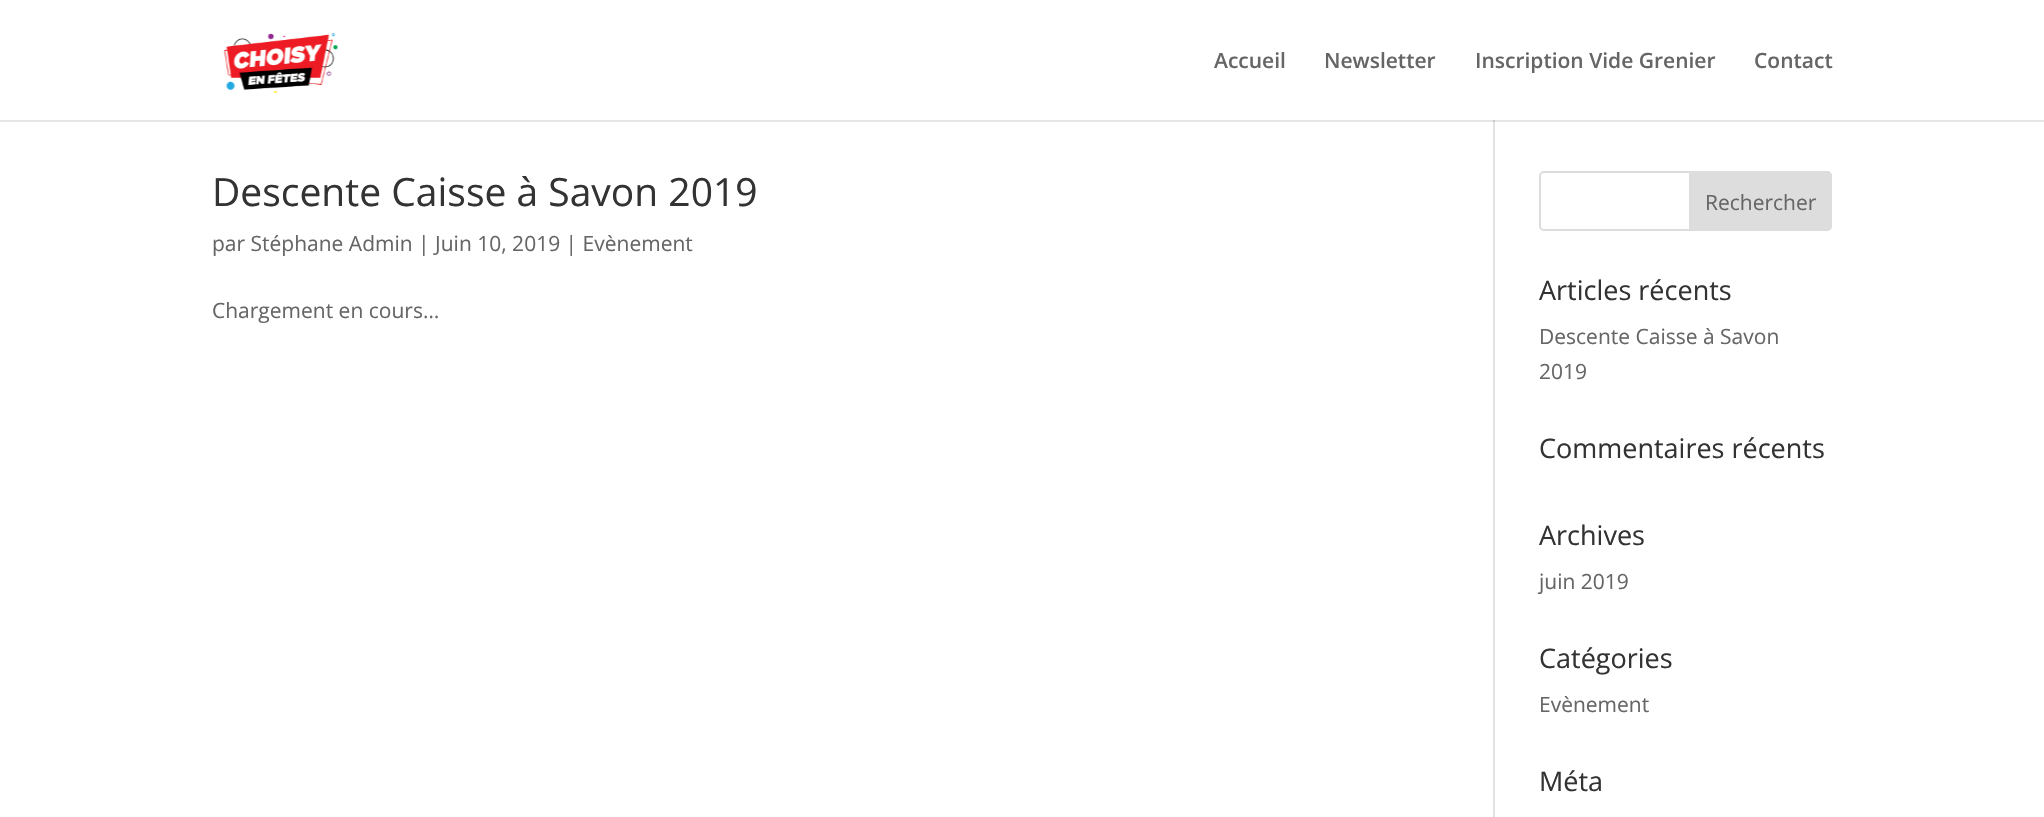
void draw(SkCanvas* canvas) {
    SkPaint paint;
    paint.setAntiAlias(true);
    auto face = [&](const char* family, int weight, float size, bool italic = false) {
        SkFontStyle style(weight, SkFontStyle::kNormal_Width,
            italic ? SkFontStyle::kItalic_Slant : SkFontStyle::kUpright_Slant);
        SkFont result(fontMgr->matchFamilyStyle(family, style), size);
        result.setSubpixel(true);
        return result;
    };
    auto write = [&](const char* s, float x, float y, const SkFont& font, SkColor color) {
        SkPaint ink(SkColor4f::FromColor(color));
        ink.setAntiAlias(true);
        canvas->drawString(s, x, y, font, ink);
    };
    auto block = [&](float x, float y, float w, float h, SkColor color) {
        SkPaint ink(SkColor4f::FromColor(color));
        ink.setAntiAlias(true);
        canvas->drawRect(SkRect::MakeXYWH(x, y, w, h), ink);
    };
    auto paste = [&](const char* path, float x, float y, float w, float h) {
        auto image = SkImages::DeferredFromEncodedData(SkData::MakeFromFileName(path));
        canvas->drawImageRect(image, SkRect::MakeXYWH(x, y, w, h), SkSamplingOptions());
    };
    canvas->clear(SK_ColorWHITE);
    block(1493, 120, 2, 697, SkColorSetRGB(226, 226, 226));
    paint.setColor(SkColorSetARGB(26, 0, 0, 0));
    canvas->drawPath(SkPathBuilder().moveTo(0, 120).lineTo(0, 122).lineTo(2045, 122).lineTo(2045, 2).lineTo(2044, 2).lineTo(2044, 120).close().detach(), paint);
    paste("pic1.png", 223, 33, 115, 60);
    auto kFont1 = face("Open Sans", 600, 21);
    write("Accueil", 1214, 68, kFont1, SkColorSetRGB(102, 102, 102));
    write("Newsletter", 1324, 68, kFont1, SkColorSetRGB(102, 102, 102));
    write("Inscription Vide Grenier", 1475, 68, kFont1, SkColorSetRGB(102, 102, 102));
    write("Contact", 1754, 68, kFont1, SkColorSetRGB(102, 102, 102));
    auto kFont2 = face("Open Sans", 400, 39);
    write("Descente Caisse à Savon 2019", 212, 206, kFont2, SkColorSetRGB(51, 51, 51));
    auto kFont3 = face("Open Sans", 400, 21);
    write("par Stéphane Admin | Juin 10, 2019 | Evènement", 212, 251, kFont3, SkColorSetRGB(102, 102, 102));
    write("Chargement en cours…", 212, 318, kFont3, SkColorSetRGB(102, 102, 102));
    paint.setStyle(SkPaint::kStroke_Style);
    paint.setStrokeWidth(2);
    paint.setColor(SkColorSetRGB(221, 221, 221));
    canvas->drawRoundRect(SkRect::MakeXYWH(1540, 172, 291, 58), 4, 4, paint);
    paint.setStyle(SkPaint::kFill_Style);
    canvas->drawPath(SkPathBuilder().moveTo(1690, 172).lineTo(1827, 172).cubicTo(1829, 172, 1831, 174, 1831, 176).lineTo(1831, 226).cubicTo(1831, 228, 1829, 230, 1827, 230).lineTo(1690, 230).close().detach(), paint);
    paint.setStyle(SkPaint::kStroke_Style);
    canvas->drawPath(SkPathBuilder().moveTo(1690, 172).lineTo(1827, 172).cubicTo(1829, 172, 1831, 174, 1831, 176).lineTo(1831, 226).cubicTo(1831, 228, 1829, 230, 1827, 230).lineTo(1690, 230).close().detach(), paint);
    write("Rechercher", 1705, 210, kFont3, SkColorSetRGB(102, 102, 102));
    auto kFont4 = face("Open Sans", 400, 27);
    write("Articles récents", 1539, 300, kFont4, SkColorSetRGB(51, 51, 51));
    write("Descente Caisse à Savon", 1539, 344, kFont3, SkColorSetRGB(102, 102, 102));
    write("2019", 1539, 379, kFont3, SkColorSetRGB(102, 102, 102));
    write("Commentaires récents", 1539, 458, kFont4, SkColorSetRGB(51, 51, 51));
    write("Archives", 1539, 545, kFont4, SkColorSetRGB(51, 51, 51));
    write("juin 2019", 1539, 589, kFont3, SkColorSetRGB(102, 102, 102));
    write("Catégories", 1539, 668, kFont4, SkColorSetRGB(51, 51, 51));
    write("Evènement", 1539, 712, kFont3, SkColorSetRGB(102, 102, 102));
    write("Méta", 1539, 791, kFont4, SkColorSetRGB(51, 51, 51));
}
